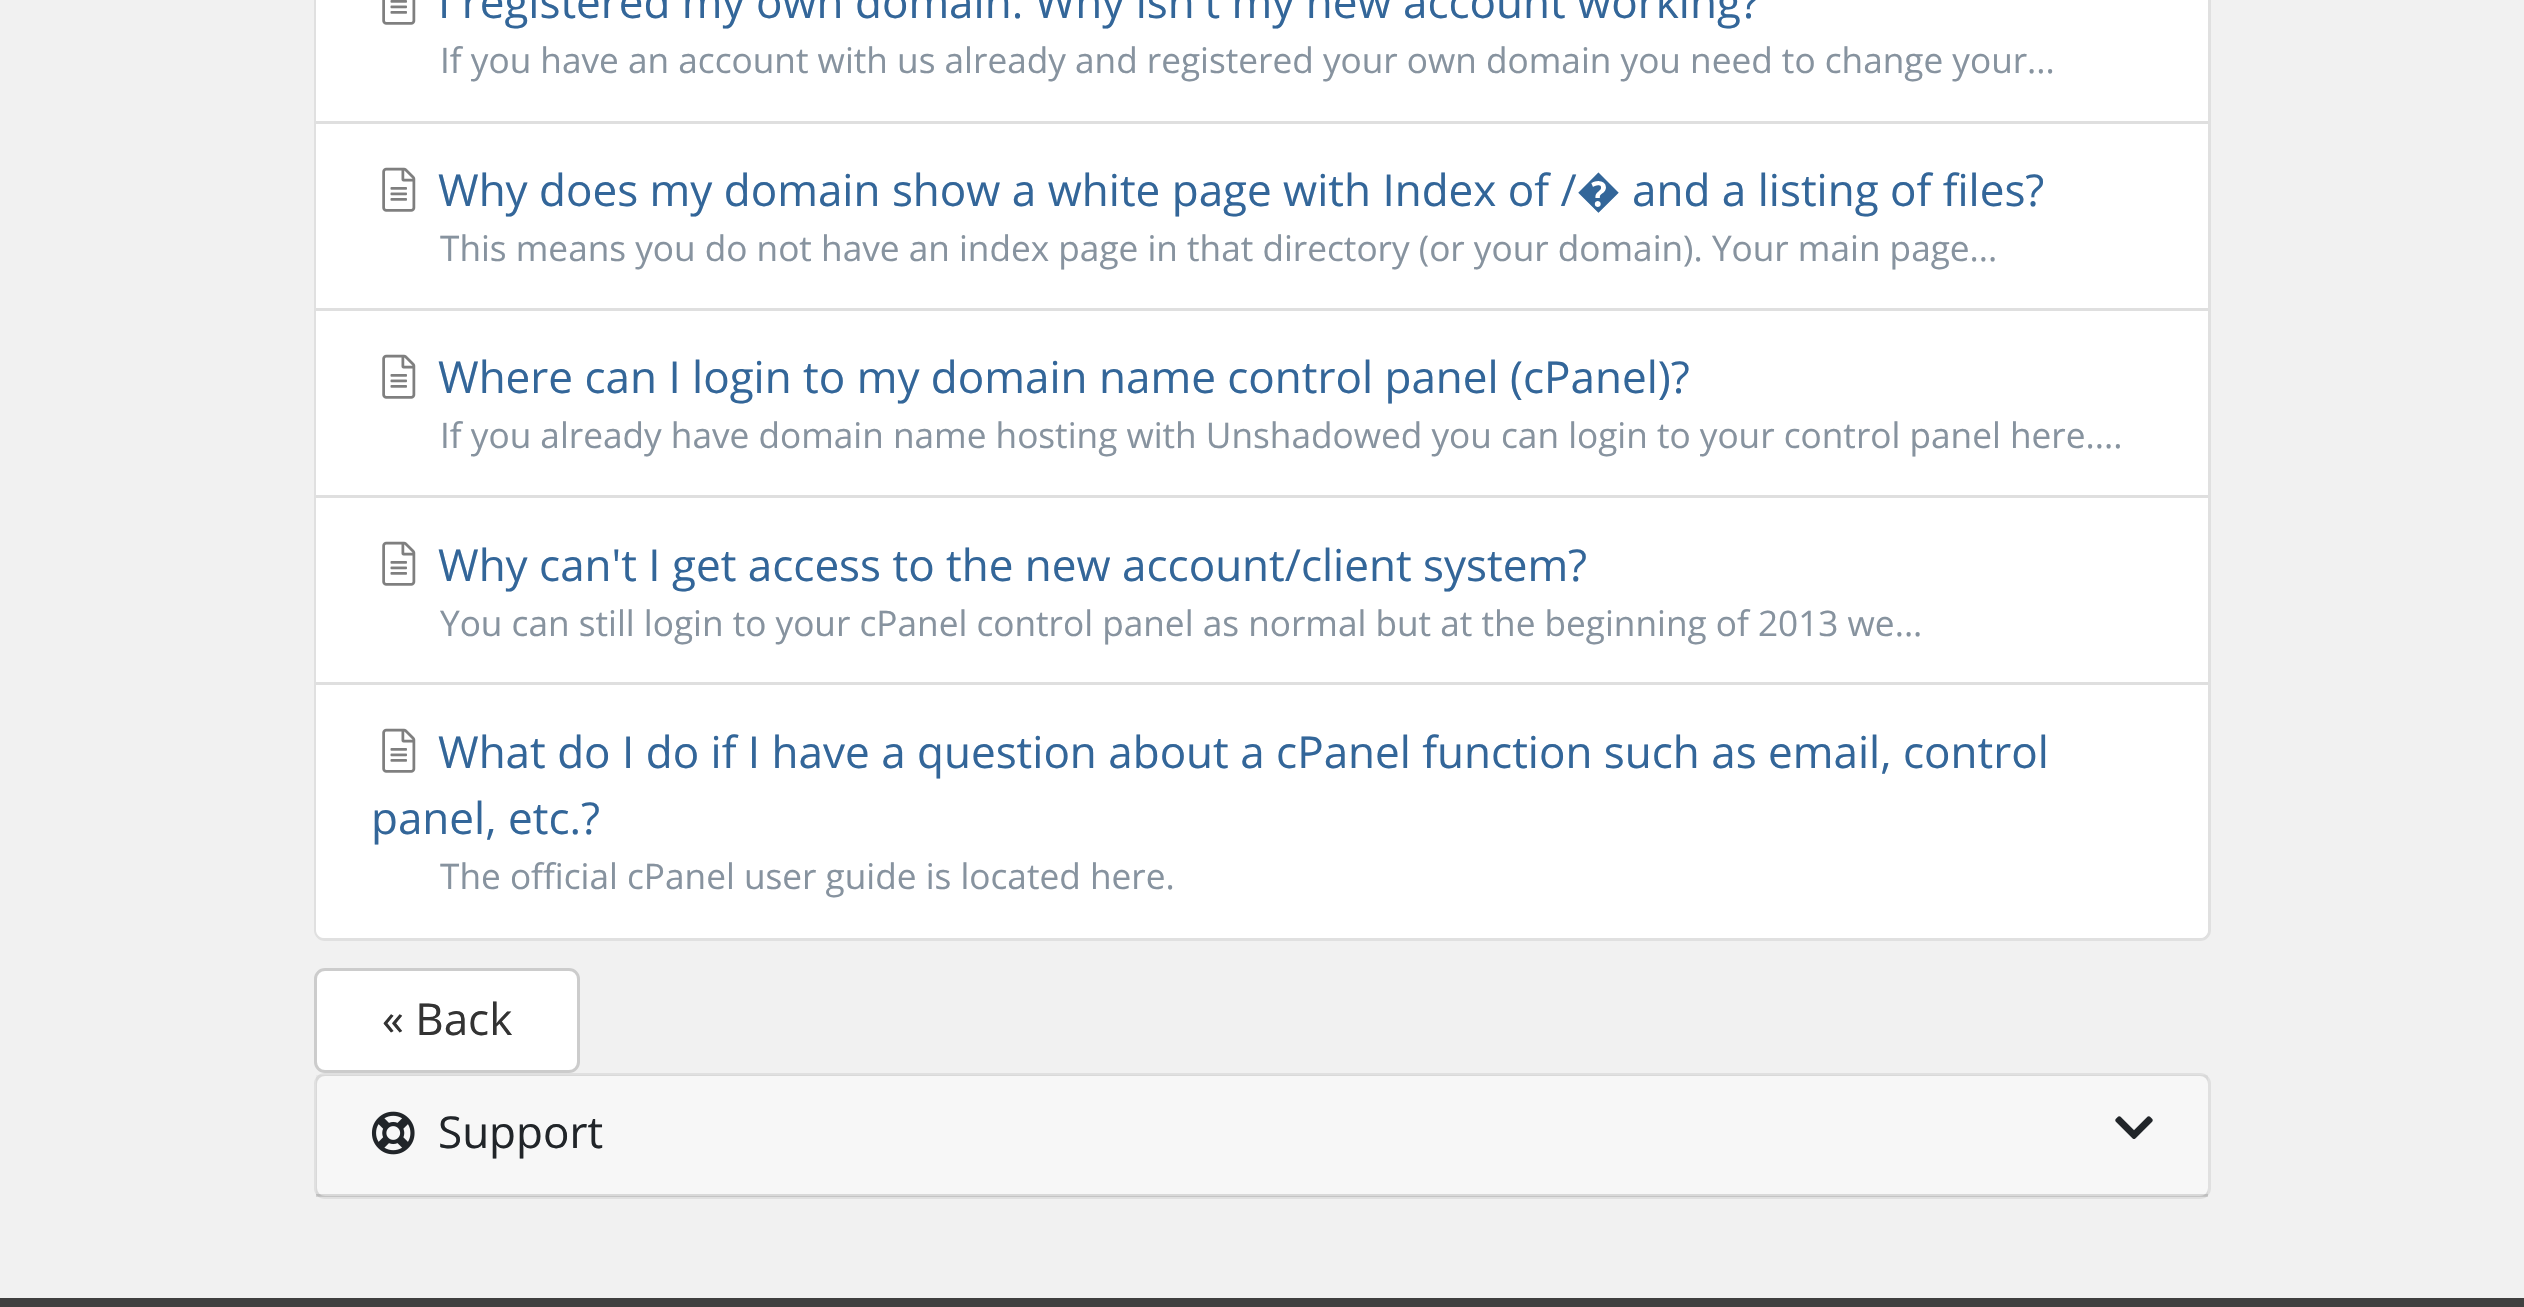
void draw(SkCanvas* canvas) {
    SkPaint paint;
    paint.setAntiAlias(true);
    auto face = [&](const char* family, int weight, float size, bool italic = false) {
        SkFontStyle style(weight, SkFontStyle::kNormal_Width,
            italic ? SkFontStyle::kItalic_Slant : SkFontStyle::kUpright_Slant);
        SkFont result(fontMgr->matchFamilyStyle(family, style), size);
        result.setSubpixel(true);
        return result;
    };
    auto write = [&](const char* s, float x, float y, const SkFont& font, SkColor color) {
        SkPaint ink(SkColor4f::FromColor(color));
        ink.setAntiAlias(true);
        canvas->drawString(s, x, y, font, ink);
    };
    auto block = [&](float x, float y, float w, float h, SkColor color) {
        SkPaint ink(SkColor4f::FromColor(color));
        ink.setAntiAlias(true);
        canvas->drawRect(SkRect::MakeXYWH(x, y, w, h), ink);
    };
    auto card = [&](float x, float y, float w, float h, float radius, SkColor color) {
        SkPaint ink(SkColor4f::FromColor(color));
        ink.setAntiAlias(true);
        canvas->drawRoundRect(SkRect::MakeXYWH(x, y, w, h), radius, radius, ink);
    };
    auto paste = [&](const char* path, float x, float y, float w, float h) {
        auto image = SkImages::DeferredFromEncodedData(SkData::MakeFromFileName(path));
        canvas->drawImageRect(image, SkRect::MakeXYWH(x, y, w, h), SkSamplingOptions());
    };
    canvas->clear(SkColorSetRGB(241, 241, 241));
    card(314, -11, 1897, 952, 11, SK_ColorWHITE);
    paint.setStyle(SkPaint::kStroke_Style);
    paint.setStrokeWidth(3);
    paint.setColor(SkColorSetARGB(31, 0, 0, 0));
    canvas->drawRoundRect(SkRect::MakeXYWH(315.5f, -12.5f, 1894, 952), 9.5f, 9.5f, paint);
    block(316, 0, 1, 121, SK_ColorWHITE);
    block(316, 121, 1892, 3, SkColorSetRGB(223, 223, 223));
    paste("pic1.png", 382, 0, 34, 25);
    auto kFont1 = face("Open Sans", 400, 44);
    write("I registered my own domain. Why isn't my new account working?", 438, 18, kFont1, SkColorSetRGB(51, 102, 153));
    auto kFont2 = face("Open Sans", 400, 35.2f);
    write("If you have an account with us already and registered your own domain you need to change your...", 440, 73, kFont2, SkColorSetRGB(135, 147, 159));
    block(316, 124, 1, 184, SK_ColorWHITE);
    block(316, 308, 1892, 3, SkColorSetRGB(223, 223, 223));
    paste("pic2.png", 382, 167, 34, 45);
    write("Why does my domain show a white page with Index of /� and a listing of files?", 438, 206, kFont1, SkColorSetRGB(51, 102, 153));
    write("This means you do not have an index page in that directory (or your domain). Your main page...", 440, 261, kFont2, SkColorSetRGB(135, 147, 159));
    block(316, 311, 1, 184, SK_ColorWHITE);
    block(316, 495, 1892, 3, SkColorSetRGB(223, 223, 223));
    paste("pic2.png", 382, 354, 34, 45);
    write("Where can I login to my domain name control panel (cPanel)?", 438, 393, kFont1, SkColorSetRGB(51, 102, 153));
    write("If you already have domain name hosting with Unshadowed you can login to your control panel here....", 440, 448, kFont2, SkColorSetRGB(135, 147, 159));
    block(316, 498, 1, 184, SK_ColorWHITE);
    block(316, 682, 1892, 3, SkColorSetRGB(223, 223, 223));
    paste("pic2.png", 382, 541, 34, 45);
    write("Why can't I get access to the new account/client system?", 438, 581, kFont1, SkColorSetRGB(51, 102, 153));
    write("You can still login to your cPanel control panel as normal but at the beginning of 2013 we...", 440, 636, kFont2, SkColorSetRGB(135, 147, 159));
    paint.setStyle(SkPaint::kFill_Style);
    paint.setColor(SK_ColorWHITE);
    canvas->drawPath(SkPathBuilder().moveTo(316, 685).lineTo(2208, 685).lineTo(2208, 930).cubicTo(2208, 934.5f, 2204.5f, 938, 2200, 938).lineTo(324, 938).cubicTo(319.5f, 938, 316, 934.5f, 316, 930).close().detach(), paint);
    paste("pic2.png", 382, 728, 34, 45);
    write("What do I do if I have a question about a cPanel function such as email, control", 438, 768, kFont1, SkColorSetRGB(51, 102, 153));
    write("panel, etc.?", 371, 834, kFont1, SkColorSetRGB(51, 102, 153));
    write("The official cPanel user guide is located here.", 440, 889, kFont2, SkColorSetRGB(135, 147, 159));
    canvas->drawRoundRect(SkRect::MakeXYWH(315.5f, 969.5f, 263, 102), 9.5f, 9.5f, paint);
    paint.setStyle(SkPaint::kStroke_Style);
    paint.setColor(SkColorSetRGB(204, 204, 204));
    canvas->drawRoundRect(SkRect::MakeXYWH(315.5f, 969.5f, 263, 102), 9.5f, 9.5f, paint);
    write("« Back", 382, 1035, kFont1, SkColorSetRGB(51, 51, 51));
    card(314, 1073, 1897, 126, 11, SK_ColorWHITE);
    paint.setColor(SkColorSetARGB(31, 0, 0, 0));
    canvas->drawRoundRect(SkRect::MakeXYWH(315.5f, 1074.5f, 1894, 123), 9.5f, 9.5f, paint);
    block(316, 1075, 1892, 121, SkColorSetARGB(8, 0, 0, 0));
    block(316, 1194, 1892, 3, SkColorSetARGB(31, 0, 0, 0));
    paste("pic3.png", 371, 1111, 44, 44);
    write("Support", 438, 1148, kFont1, SkColorSetRGB(33, 37, 41));
    paste("pic4.png", 2115, 1116, 38, 23);
    block(0, 1298, 2524, 9, SkColorSetRGB(64, 64, 64));
}
